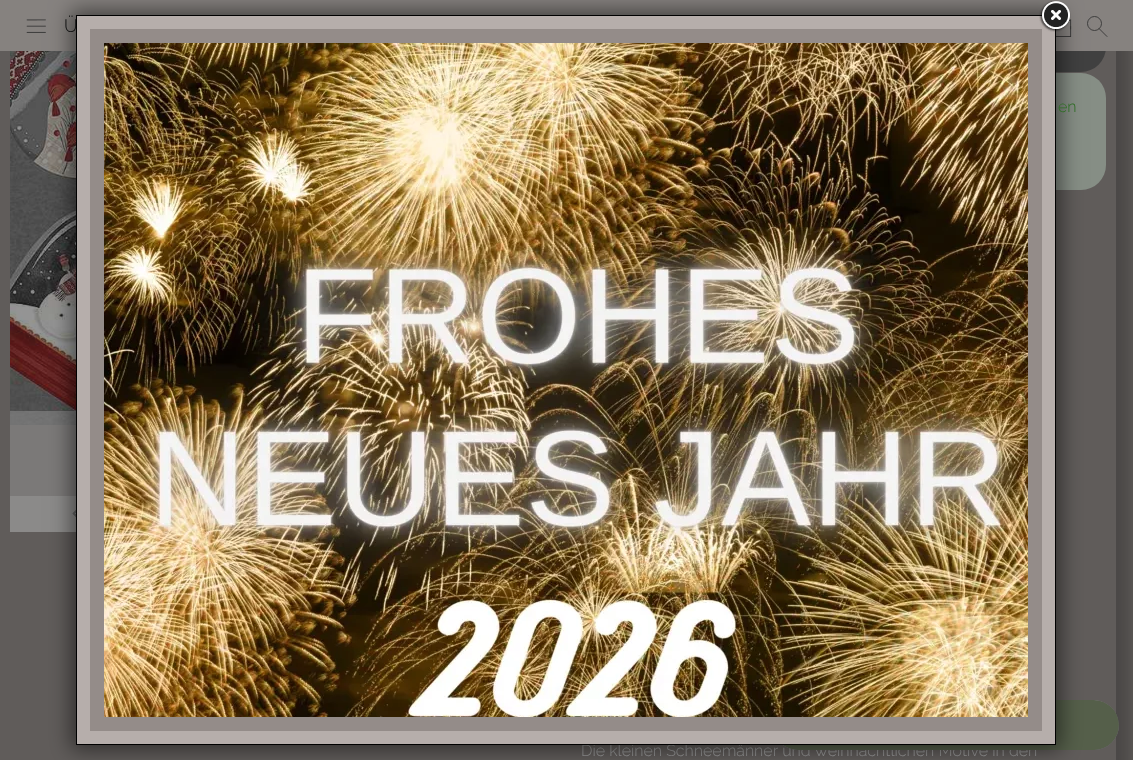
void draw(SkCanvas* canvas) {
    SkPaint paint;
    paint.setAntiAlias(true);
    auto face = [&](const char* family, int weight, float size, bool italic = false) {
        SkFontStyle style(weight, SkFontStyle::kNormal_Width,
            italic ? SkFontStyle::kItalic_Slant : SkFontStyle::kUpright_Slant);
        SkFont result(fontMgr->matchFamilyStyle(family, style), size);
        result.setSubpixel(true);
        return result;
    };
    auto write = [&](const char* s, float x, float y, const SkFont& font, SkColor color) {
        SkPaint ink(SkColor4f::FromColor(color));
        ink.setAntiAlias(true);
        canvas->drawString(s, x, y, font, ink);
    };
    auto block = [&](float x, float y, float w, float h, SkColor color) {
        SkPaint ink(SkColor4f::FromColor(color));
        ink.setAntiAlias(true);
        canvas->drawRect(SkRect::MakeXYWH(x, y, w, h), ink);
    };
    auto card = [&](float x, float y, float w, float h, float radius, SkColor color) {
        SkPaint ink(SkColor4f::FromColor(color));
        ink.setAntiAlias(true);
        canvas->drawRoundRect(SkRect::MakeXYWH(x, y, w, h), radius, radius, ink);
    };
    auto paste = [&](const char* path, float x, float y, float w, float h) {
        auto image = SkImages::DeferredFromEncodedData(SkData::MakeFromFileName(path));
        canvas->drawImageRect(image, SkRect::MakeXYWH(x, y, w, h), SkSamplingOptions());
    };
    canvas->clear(SkColorSetRGB(96, 92, 90));
    paint.setColor(SkColorSetARGB(77, 22, 22, 22));
    paint.setMaskFilter(SkMaskFilter::MakeBlur(kNormal_SkBlurStyle, 7.5f));
    canvas->drawRect(SkRect::MakeXYWH(-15, -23, 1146, 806), paint);
    paint.setMaskFilter(nullptr);
    block(0, 51, 1116, 709, SkColorSetRGB(96, 92, 90));
    card(835, 16, 271, 56, 25, SkColorSetRGB(64, 64, 64));
    block(0, 0, 1133, 51, SkColorSetRGB(134, 130, 127));
    paste("pic3.png", 26, 19, 20, 14);
    paste("pic4.png", 1056, 19, 16, 18);
    paint.setStyle(SkPaint::kStroke_Style);
    paint.setStrokeWidth(0.9f);
    paint.setColor(SkColorSetRGB(53, 53, 53));
    canvas->drawCircle(1094.5f, 23.5f, 7, paint);
    paste("pic5.png", 10, 51, 66, 374);
    block(10, 411, 66, 85, SkColorSetARGB(128, 149, 149, 149));
    block(10, 496, 66, 36, SkColorSetRGB(139, 138, 137));
    paste("pic6.png", 72, 509, 4, 9);
    card(835, 73, 271, 117, 25, SkColorSetRGB(134, 142, 133));
    auto kFont1 = face("Raleway", 300, 16);
    write("Die kleinen Schneemänner und weihnachtlichen Motive in den", 581, 756, kFont1, SkColorSetRGB(149, 149, 149));
    paste("pic7.png", 783, 700, 336, 50);
    paint.setStyle(SkPaint::kFill_Style);
    paint.setColor(SkColorSetARGB(128, 0, 0, 0));
    paint.setMaskFilter(SkMaskFilter::MakeBlur(kNormal_SkBlurStyle, 10));
    canvas->drawRect(SkRect::MakeXYWH(71, 10, 990, 740), paint);
    paint.setMaskFilter(nullptr);
    auto kFont2 = face("Raleway", 300, 18);
    write("Ü", 64, 32, kFont2, SkColorSetRGB(22, 22, 22));
    paint.setColor(SkColorSetRGB(182, 174, 171));
    canvas->drawRect(SkRect::MakeXYWH(76.5f, 15.5f, 979, 729), paint);
    paint.setStyle(SkPaint::kStroke_Style);
    paint.setStrokeWidth(1);
    paint.setColor(SK_ColorBLACK);
    canvas->drawRect(SkRect::MakeXYWH(76.5f, 15.5f, 979, 729), paint);
    block(90, 29, 952, 702, SkColorSetRGB(148, 140, 137));
    paste("pic1.png", 1039, 0, 32, 32);
    paste("pic2.png", 104, 43, 924, 674);
    paint.setStrokeWidth(0.9f);
    paint.setStrokeCap(SkPaint::kRound_Cap);
    paint.setColor(SkColorSetRGB(53, 53, 53));
    canvas->drawPath(SkPathBuilder().moveTo(1099, 28.5f).lineTo(1107, 36.5f).detach(), paint);
    write("en", 1058, 112, kFont1, SkColorSetRGB(48, 109, 39));
}
